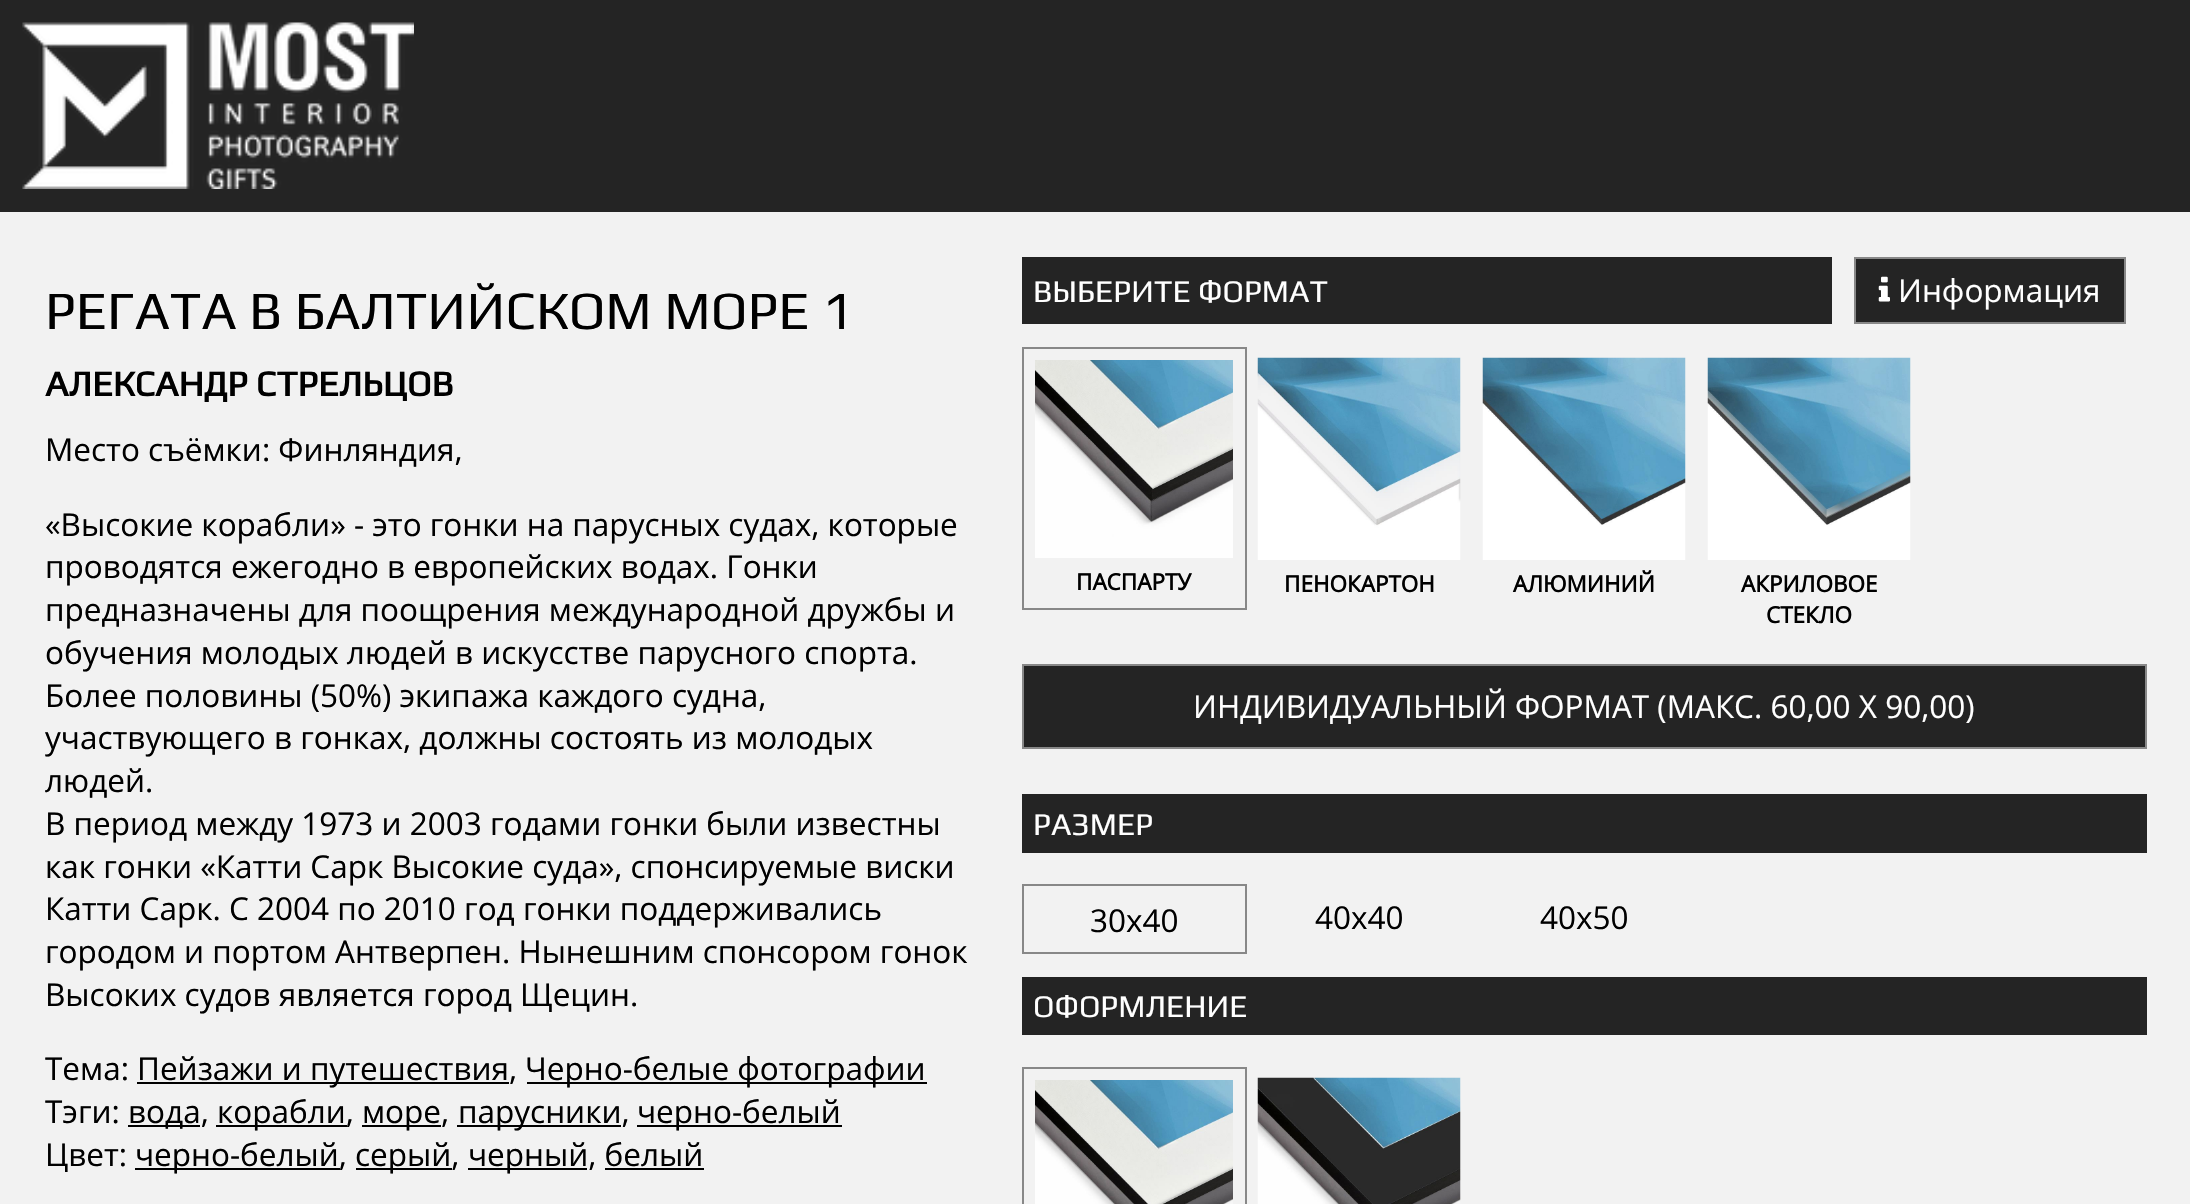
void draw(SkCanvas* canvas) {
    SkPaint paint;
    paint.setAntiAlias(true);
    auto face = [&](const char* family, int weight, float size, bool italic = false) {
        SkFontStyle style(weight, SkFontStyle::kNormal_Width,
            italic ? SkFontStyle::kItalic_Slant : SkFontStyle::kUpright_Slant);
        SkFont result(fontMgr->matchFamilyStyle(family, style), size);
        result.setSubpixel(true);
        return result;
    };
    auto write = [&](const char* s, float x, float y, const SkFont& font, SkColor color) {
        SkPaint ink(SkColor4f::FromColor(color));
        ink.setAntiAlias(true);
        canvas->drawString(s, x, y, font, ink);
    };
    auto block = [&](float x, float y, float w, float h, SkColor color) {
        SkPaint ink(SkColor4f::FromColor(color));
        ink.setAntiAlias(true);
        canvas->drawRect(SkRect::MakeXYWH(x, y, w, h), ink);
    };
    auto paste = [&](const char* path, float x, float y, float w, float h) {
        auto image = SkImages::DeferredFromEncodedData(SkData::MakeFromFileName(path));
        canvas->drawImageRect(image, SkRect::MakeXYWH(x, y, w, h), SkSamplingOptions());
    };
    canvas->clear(SkColorSetRGB(242, 242, 242));
    block(0, 0, 2190, 212, SkColorSetRGB(36, 36, 36));
    paste("pic1.png", 22, 22, 392, 167);
    auto kFont1 = face("Play", 400, 54);
    write("РЕГАТА В БАЛТИЙСКОМ МОРЕ 1", 45, 329, kFont1, SK_ColorBLACK);
    auto kFont2 = face("Play", 700, 36);
    write("АЛЕКСАНДР СТРЕЛЬЦОВ", 45, 396, kFont2, SK_ColorBLACK);
    auto kFont3 = face("Open Sans", 400, 31.5f);
    write("Место съёмки: Финляндия,", 45, 461, kFont3, SK_ColorBLACK);
    write("«Высокие корабли» - это гонки на парусных судах, которые", 45, 536, kFont3, SK_ColorBLACK);
    write("проводятся ежегодно в европейских водах. Гонки", 45, 578, kFont3, SK_ColorBLACK);
    write("предназначены для поощрения международной дружбы и", 45, 621, kFont3, SK_ColorBLACK);
    write("обучения молодых людей в искусстве парусного спорта.", 45, 664, kFont3, SK_ColorBLACK);
    write("Более половины (50%) экипажа каждого судна,", 45, 707, kFont3, SK_ColorBLACK);
    write("участвующего в гонках, должны состоять из молодых", 45, 749, kFont3, SK_ColorBLACK);
    write("людей.", 45, 792, kFont3, SK_ColorBLACK);
    write("В период между 1973 и 2003 годами гонки были известны", 45, 835, kFont3, SK_ColorBLACK);
    write("как гонки «Катти Сарк Высокие суда», спонсируемые виски", 45, 878, kFont3, SK_ColorBLACK);
    write("Катти Сарк. С 2004 по 2010 год гонки поддерживались", 45, 920, kFont3, SK_ColorBLACK);
    write("городом и портом Антверпен. Нынешним спонсором гонок", 45, 963, kFont3, SK_ColorBLACK);
    write("Высоких судов является город Щецин.", 45, 1006, kFont3, SK_ColorBLACK);
    write("Тема:", 45, 1080, kFont3, SK_ColorBLACK);
    block(137, 1082, 372, 2, SK_ColorBLACK);
    write("Пейзажи и путешествия,", 137, 1080, kFont3, SK_ColorBLACK);
    block(527, 1082, 400, 2, SK_ColorBLACK);
    write("Черно-белые фотографии", 525, 1080, kFont3, SK_ColorBLACK);
    write("Тэги:", 45, 1123, kFont3, SK_ColorBLACK);
    block(128, 1125, 72, 2, SK_ColorBLACK);
    write("вода,", 128, 1123, kFont3, SK_ColorBLACK);
    block(216, 1125, 131, 2, SK_ColorBLACK);
    write("корабли,", 217, 1123, kFont3, SK_ColorBLACK);
    block(362, 1125, 79, 2, SK_ColorBLACK);
    write("море,", 362, 1123, kFont3, SK_ColorBLACK);
    block(457, 1125, 164, 2, SK_ColorBLACK);
    write("парусники,", 458, 1123, kFont3, SK_ColorBLACK);
    block(637, 1125, 205, 2, SK_ColorBLACK);
    write("черно-белый", 637, 1123, kFont3, SK_ColorBLACK);
    write("Цвет:", 45, 1166, kFont3, SK_ColorBLACK);
    block(135, 1168, 205, 2, SK_ColorBLACK);
    write("черно-белый,", 135, 1166, kFont3, SK_ColorBLACK);
    block(356, 1168, 96, 2, SK_ColorBLACK);
    write("серый,", 355, 1166, kFont3, SK_ColorBLACK);
    block(468, 1168, 119, 2, SK_ColorBLACK);
    write("черный, белый", 468, 1166, kFont3, SK_ColorBLACK);
    block(605, 1168, 99, 2, SK_ColorBLACK);
    block(1022, 257, 810, 67, SkColorSetRGB(36, 36, 36));
    auto kFont4 = face("Play", 400, 31.5f);
    write("ВЫБЕРИТЕ ФОРМАТ", 1033, 302, kFont4, SK_ColorWHITE);
    paint.setColor(SkColorSetRGB(36, 36, 36));
    canvas->drawRect(SkRect::MakeXYWH(1855, 258, 270, 65), paint);
    paint.setStyle(SkPaint::kStroke_Style);
    paint.setStrokeWidth(2);
    paint.setColor(SkColorSetRGB(136, 136, 136));
    canvas->drawRect(SkRect::MakeXYWH(1855, 258, 270, 65), paint);
    paste("pic2.png", 1878, 276, 12, 26);
    write("Информация", 1898, 302, kFont3, SK_ColorWHITE);
    canvas->drawRect(SkRect::MakeXYWH(1023, 348, 223, 261), paint);
    paste("pic3.png", 1035, 360, 198, 198);
    auto kFont5 = face("Open Sans", 700, 22.5f);
    write("ПАСПАРТУ", 1076, 590, kFont5, SK_ColorBLACK);
    paste("pic4.png", 1257, 357, 204, 203);
    write("ПЕНОКАРТОН", 1284, 592, kFont5, SK_ColorBLACK);
    paste("pic5.png", 1482, 357, 204, 203);
    write("АЛЮМИНИЙ", 1513, 592, kFont5, SK_ColorBLACK);
    paste("pic6.png", 1707, 357, 204, 203);
    write("АКРИЛОВОЕ", 1741, 592, kFont5, SK_ColorBLACK);
    write("СТЕКЛО", 1766, 623, kFont5, SK_ColorBLACK);
    paint.setStyle(SkPaint::kFill_Style);
    paint.setColor(SkColorSetRGB(36, 36, 36));
    canvas->drawRect(SkRect::MakeXYWH(1023, 665, 1123, 83), paint);
    paint.setStyle(SkPaint::kStroke_Style);
    paint.setColor(SkColorSetRGB(136, 136, 136));
    canvas->drawRect(SkRect::MakeXYWH(1023, 665, 1123, 83), paint);
    write("ИНДИВИДУАЛЬНЫЙ ФОРМАТ (МАКС. 60,00 X 90,00)", 1193, 718, kFont3, SK_ColorWHITE);
    block(1022, 794, 1125, 59, SkColorSetRGB(36, 36, 36));
    write("РАЗМЕР", 1033, 835, kFont4, SK_ColorWHITE);
    canvas->drawRect(SkRect::MakeXYWH(1023, 885, 223, 68), paint);
    write("30x40", 1090, 932, kFont3, SK_ColorBLACK);
    write("40x40", 1315, 929, kFont3, SK_ColorBLACK);
    write("40x50", 1540, 929, kFont3, SK_ColorBLACK);
    block(1022, 977, 1125, 58, SkColorSetRGB(36, 36, 36));
    write("ОФОРМЛЕНИЕ", 1033, 1017, kFont4, SK_ColorWHITE);
    canvas->drawRect(SkRect::MakeXYWH(1023, 1068, 223, 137), paint);
    paste("pic7.png", 1035, 1080, 198, 124);
    paste("pic8.png", 1257, 1077, 204, 127);
}
